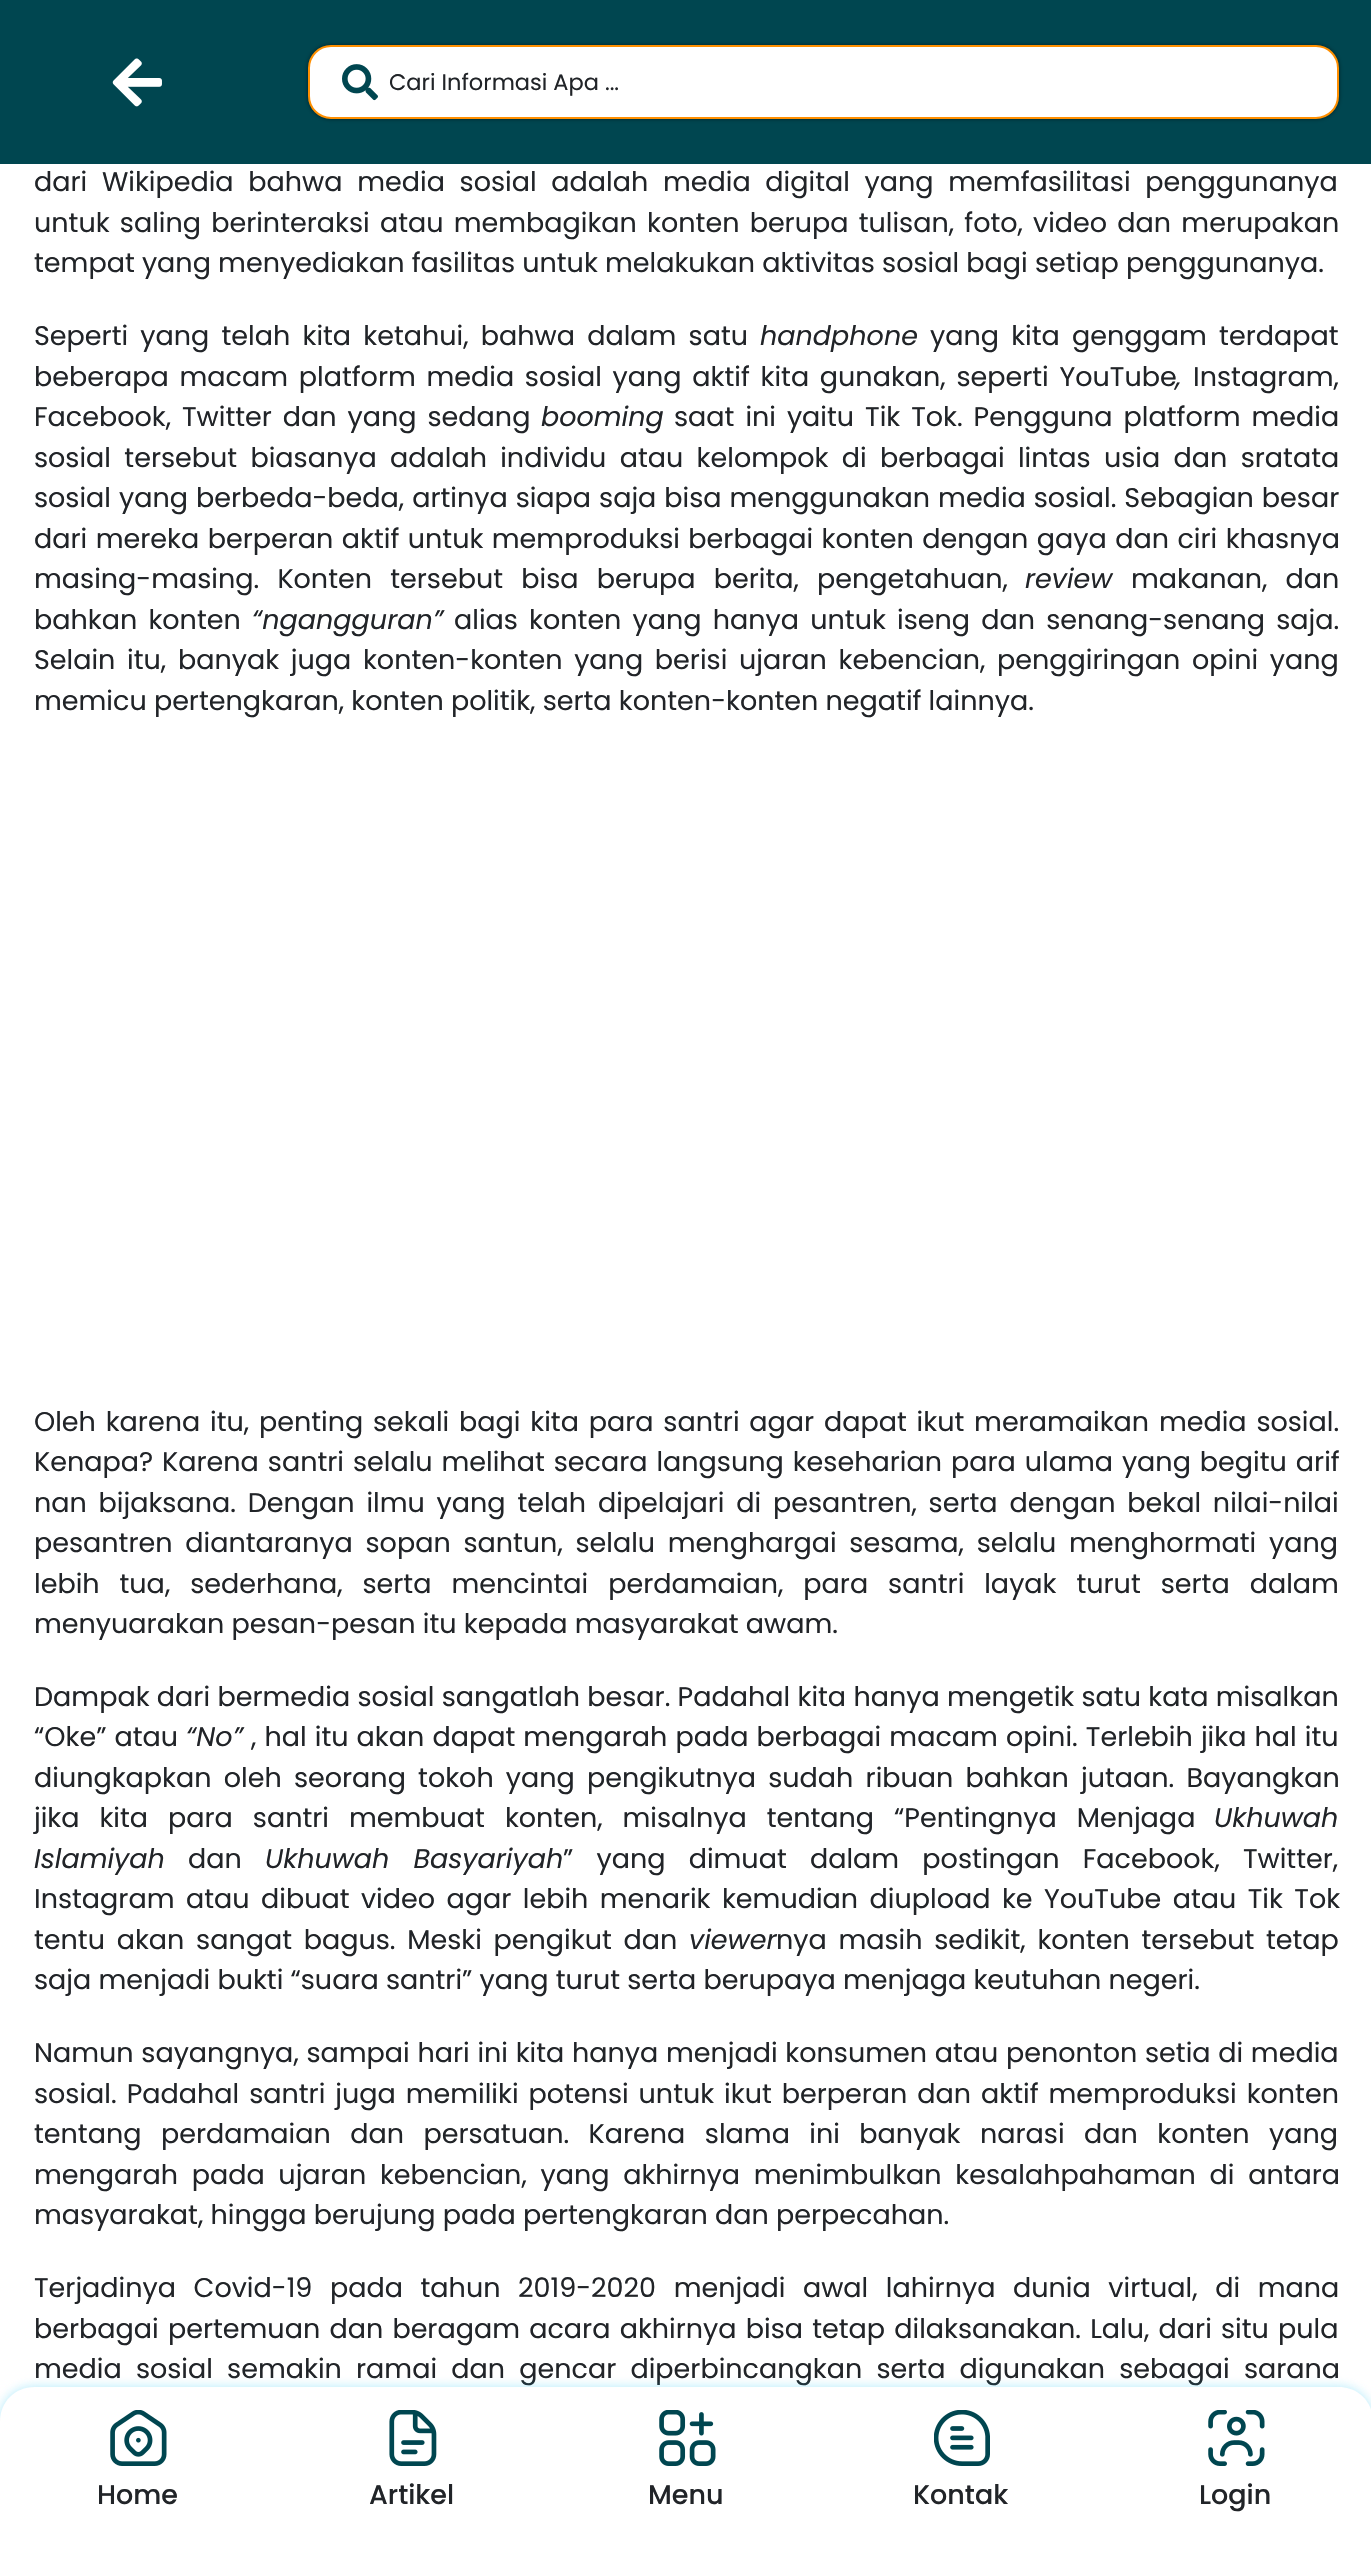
void draw(SkCanvas* canvas) {
    SkPaint paint;
    paint.setAntiAlias(true);
    auto face = [&](const char* family, int weight, float size, bool italic = false) {
        SkFontStyle style(weight, SkFontStyle::kNormal_Width,
            italic ? SkFontStyle::kItalic_Slant : SkFontStyle::kUpright_Slant);
        SkFont result(fontMgr->matchFamilyStyle(family, style), size);
        result.setSubpixel(true);
        return result;
    };
    auto write = [&](const char* s, float x, float y, const SkFont& font, SkColor color) {
        SkPaint ink(SkColor4f::FromColor(color));
        ink.setAntiAlias(true);
        canvas->drawString(s, x, y, font, ink);
    };
    auto writeSpaced = [&](const char* s, float x, float y, const SkFont& font, const SkPaint& ink, float letter, float word) {
        std::vector<SkGlyphID> glyphs(font.countText(s, strlen(s), SkTextEncoding::kUTF8));
        std::vector<float> xs(glyphs.size());
        font.textToGlyphs(s, strlen(s), SkTextEncoding::kUTF8, glyphs);
        font.getXPos(glyphs, xs, x);
        float extra = 0;
        for (size_t i = 0; i < glyphs.size(); i++) {
            xs[i] += extra;
            extra += letter + word * (glyphs[i] == font.unicharToGlyph(' '));
        }
        canvas->drawTextBlob(SkTextBlob::MakeFromPosHGlyphs(glyphs, xs, y, font), 0, 0, ink);
    };
    auto block = [&](float x, float y, float w, float h, SkColor color) {
        SkPaint ink(SkColor4f::FromColor(color));
        ink.setAntiAlias(true);
        canvas->drawRect(SkRect::MakeXYWH(x, y, w, h), ink);
    };
    auto paste = [&](const char* path, float x, float y, float w, float h) {
        auto image = SkImages::DeferredFromEncodedData(SkData::MakeFromFileName(path));
        canvas->drawImageRect(image, SkRect::MakeXYWH(x, y, w, h), SkSamplingOptions());
    };
    canvas->clear(SK_ColorWHITE);
    block(0, 0, 1371, 164, SkColorSetRGB(0, 70, 80));
    paste("pic1.png", 112, 58, 50, 49);
    paint.setColor(SkColorSetARGB(128, 0, 0, 0));
    paint.setMaskFilter(SkMaskFilter::MakeBlur(kNormal_SkBlurStyle, 2));
    canvas->drawRoundRect(SkRect::MakeXYWH(308, 45, 1031, 74), 23, 23, paint);
    paint.setMaskFilter(nullptr);
    paint.setColor(SK_ColorWHITE);
    canvas->drawRoundRect(SkRect::MakeXYWH(309, 46, 1029, 72), 22, 22, paint);
    paint.setStyle(SkPaint::kStroke_Style);
    paint.setStrokeWidth(2);
    paint.setColor(SkColorSetRGB(255, 143, 0));
    canvas->drawRoundRect(SkRect::MakeXYWH(309, 46, 1029, 72), 22, 22, paint);
    paste("pic2.png", 342, 64, 36, 37);
    auto kFont1 = face("Poppins", 400, 22.5f);
    write("Cari Informasi Apa ...", 389, 90, kFont1, SkColorSetRGB(33, 36, 40));
    auto kFont2 = face("Poppins", 400, 27);
    paint.setStyle(SkPaint::kFill_Style);
    paint.setColor(SkColorSetRGB(33, 36, 40));
    writeSpaced("dari Wikipedia bahwa media sosial adalah media digital yang memfasilitasi penggunanya", 34, 191, kFont2, paint, 0, 7.5f);
    writeSpaced("untuk saling berinteraksi atau membagikan konten berupa tulisan, foto, video dan merupakan", 34, 232, kFont2, paint, 0, 3);
    write("tempat yang menyediakan fasilitas untuk melakukan aktivitas sosial bagi setiap penggunanya.", 34, 272, kFont2, SkColorSetRGB(33, 36, 40));
    writeSpaced("Seperti yang telah kita ketahui, bahwa dalam satu", 34, 345, kFont2, paint, 0, 5);
    auto kFont3 = face("Poppins", 400, 27, true);
    write("handphone", 760, 345, kFont3, SkColorSetRGB(33, 36, 40));
    writeSpaced("yang kita genggam terdapat", 930, 345, kFont2, paint, 0, 5);
    writeSpaced("beberapa macam platform media sosial yang aktif kita gunakan, seperti YouTube", 34, 386, kFont2, paint, 0, 3.5f);
    write(",", 1176, 386, kFont3, SkColorSetRGB(33, 36, 40));
    write("Instagram,", 1193, 386, kFont2, SkColorSetRGB(33, 36, 40));
    writeSpaced("Facebook, Twitter dan yang sedang", 34, 426, kFont2, paint, 0, 3.75f);
    write("booming", 541, 426, kFont3, SkColorSetRGB(33, 36, 40));
    writeSpaced("saat ini yaitu Tik Tok. Pengguna platform media", 674, 426, kFont2, paint, 0, 3.75f);
    writeSpaced("sosial tersebut biasanya adalah individu atau kelompok di berbagai lintas usia dan sratata", 34, 467, kFont2, paint, 0, 6.1f);
    writeSpaced("sosial yang berbeda-beda, artinya siapa saja bisa menggunakan media sosial. Sebagian besar", 34, 507, kFont2, paint, 0, 0.75f);
    writeSpaced("dari mereka berperan aktif untuk memproduksi berbagai konten dengan gaya dan ciri khasnya", 34, 548, kFont2, paint, 0, 1.25f);
    writeSpaced("masing-masing. Konten tersebut bisa berupa berita, pengetahuan,", 34, 588, kFont2, paint, 0, 11);
    write("review", 1025, 588, kFont3, SkColorSetRGB(33, 36, 40));
    writeSpaced("makanan, dan", 1131, 588, kFont2, paint, 0, 11);
    writeSpaced("bahkan konten", 34, 629, kFont2, paint, 0, 4);
    write("“ngangguran”", 252, 629, kFont3, SkColorSetRGB(33, 36, 40));
    writeSpaced("alias konten yang hanya untuk iseng dan senang-senang saja.", 454, 629, kFont2, paint, 0, 4);
    writeSpaced("Selain itu, banyak juga konten-konten yang berisi ujaran kebencian, penggiringan opini yang", 34, 669, kFont2, paint, 0, 4.5f);
    write("memicu pertengkaran, konten politik, serta konten-konten negatif lainnya.", 34, 710, kFont2, SkColorSetRGB(33, 36, 40));
    writeSpaced("Oleh karena itu, penting sekali bagi kita para santri agar dapat ikut meramaikan media sosial.", 34, 1431, kFont2, paint, 0, 2.6f);
    writeSpaced("Kenapa? Karena santri selalu melihat secara langsung keseharian para ulama yang begitu arif", 34, 1471, kFont2, paint, 0, 1.75f);
    writeSpaced("nan bijaksana. Dengan ilmu yang telah dipelajari di pesantren, serta dengan bekal nilai-nilai", 34, 1512, kFont2, paint, 0, 4.6f);
    writeSpaced("pesantren diantaranya sopan santun, selalu menghargai sesama, selalu menghormati yang", 34, 1552, kFont2, paint, 0, 5.5f);
    writeSpaced("lebih tua, sederhana, serta mencintai perdamaian, para santri layak turut serta dalam", 34, 1593, kFont2, paint, 0, 12.75f);
    write("menyuarakan pesan-pesan itu kepada masyarakat awam.", 34, 1633, kFont2, SkColorSetRGB(33, 36, 40));
    writeSpaced("Dampak dari bermedia sosial sangatlah besar. Padahal kita hanya mengetik satu kata misalkan", 34, 1706, kFont2, paint, 0, 0.1f);
    writeSpaced("“Oke” atau", 34, 1746, kFont2, paint, 0, 0.9f);
    write("“No”", 186, 1746, kFont3, SkColorSetRGB(33, 36, 40));
    writeSpaced(", hal itu akan dapat mengarah pada berbagai macam opini. Terlebih jika hal itu", 251, 1746, kFont2, paint, 0, 0.9f);
    writeSpaced("diungkapkan oleh seorang tokoh yang pengikutnya sudah ribuan bahkan jutaan. Bayangkan", 34, 1787, kFont2, paint, 0, 5);
    writeSpaced("jika kita para santri membuat konten, misalnya tentang “Pentingnya Menjaga", 34, 1827, kFont2, paint, 0, 12.75f);
    write("Ukhuwah", 1214, 1827, kFont3, SkColorSetRGB(33, 36, 40));
    write("Islamiyah", 34, 1868, kFont3, SkColorSetRGB(33, 36, 40));
    write("dan", 188, 1868, kFont2, SkColorSetRGB(33, 36, 40));
    writeSpaced("Ukhuwah Basyariyah", 265, 1868, kFont3, paint, 0, 16);
    writeSpaced("” yang dimuat dalam postingan Facebook, Twitter,", 563, 1868, kFont2, paint, 0, 16);
    writeSpaced("Instagram atau dibuat video agar lebih menarik kemudian diupload ke YouTube atau Tik Tok", 34, 1908, kFont2, paint, 0, 4.25f);
    writeSpaced("tentu akan sangat bagus. Meski pengikut dan", 34, 1949, kFont2, paint, 0, 4.5f);
    write("viewer", 689, 1949, kFont3, SkColorSetRGB(33, 36, 40));
    writeSpaced("nya masih sedikit, konten tersebut tetap", 776, 1949, kFont2, paint, 0, 4.5f);
    write("saja menjadi bukti “suara santri” yang turut serta berupaya menjaga keutuhan negeri.", 34, 1989, kFont2, SkColorSetRGB(33, 36, 40));
    writeSpaced("Namun sayangnya, sampai hari ini kita hanya menjadi konsumen atau penonton setia di media", 34, 2062, kFont2, paint, 0, 0.5f);
    writeSpaced("sosial. Padahal santri juga memiliki potensi untuk ikut berperan dan aktif memproduksi konten", 34, 2103, kFont2, paint, 0, 2.75f);
    writeSpaced("tentang perdamaian dan persatuan. Karena slama ini banyak narasi dan konten yang", 34, 2143, kFont2, paint, 0, 12.25f);
    writeSpaced("mengarah pada ujaran kebencian, yang akhirnya menimbulkan kesalahpahaman di antara", 34, 2184, kFont2, paint, 0, 6.5f);
    write("masyarakat, hingga berujung pada pertengkaran dan perpecahan.", 34, 2224, kFont2, SkColorSetRGB(33, 36, 40));
    writeSpaced("Terjadinya Covid-19 pada tahun 2019-2020 menjadi awal lahirnya dunia virtual, di mana", 34, 2297, kFont2, paint, 0, 10.4f);
    writeSpaced("berbagai pertemuan dan beragam acara akhirnya bisa tetap dilaksanakan. Lalu, dari situ pula", 34, 2338, kFont2, paint, 0, 2);
    writeSpaced("media sosial semakin ramai dan gencar diperbincangkan serta digunakan sebagai sarana", 34, 2378, kFont2, paint, 0, 7);
    paint.setColor(SkColorSetARGB(84, 16, 192, 242));
    paint.setMaskFilter(SkMaskFilter::MakeBlur(kNormal_SkBlurStyle, 5.5f));
    canvas->drawRoundRect(SkRect::MakeXYWH(0, 2387, 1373, 162), 34, 34, paint);
    paint.setMaskFilter(nullptr);
    paint.setColor(SK_ColorWHITE);
    canvas->drawPath(SkPathBuilder().moveTo(34, 2387).lineTo(1339, 2387).cubicTo(1358, 2387, 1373, 2402, 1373, 2421).lineTo(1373, 2549).lineTo(0, 2549).lineTo(0, 2421).cubicTo(0, 2402, 15, 2387, 34, 2387).close().detach(), paint);
    paste("pic3.png", 110, 2410, 57, 56);
    auto kFont4 = face("Poppins", 500, 27);
    write("Home", 97, 2504, kFont4, SkColorSetRGB(33, 36, 40));
    paste("pic4.png", 389, 2410, 48, 56);
    write("Artikel", 369, 2504, kFont4, SkColorSetRGB(33, 36, 40));
    paste("pic5.png", 659, 2410, 57, 56);
    write("Menu", 648, 2504, kFont4, SkColorSetRGB(33, 36, 40));
    paste("pic6.png", 934, 2410, 56, 56);
    write("Kontak", 913, 2504, kFont4, SkColorSetRGB(33, 36, 40));
    paste("pic7.png", 1208, 2410, 57, 56);
    write("Login", 1199, 2504, kFont4, SkColorSetRGB(33, 36, 40));
}
